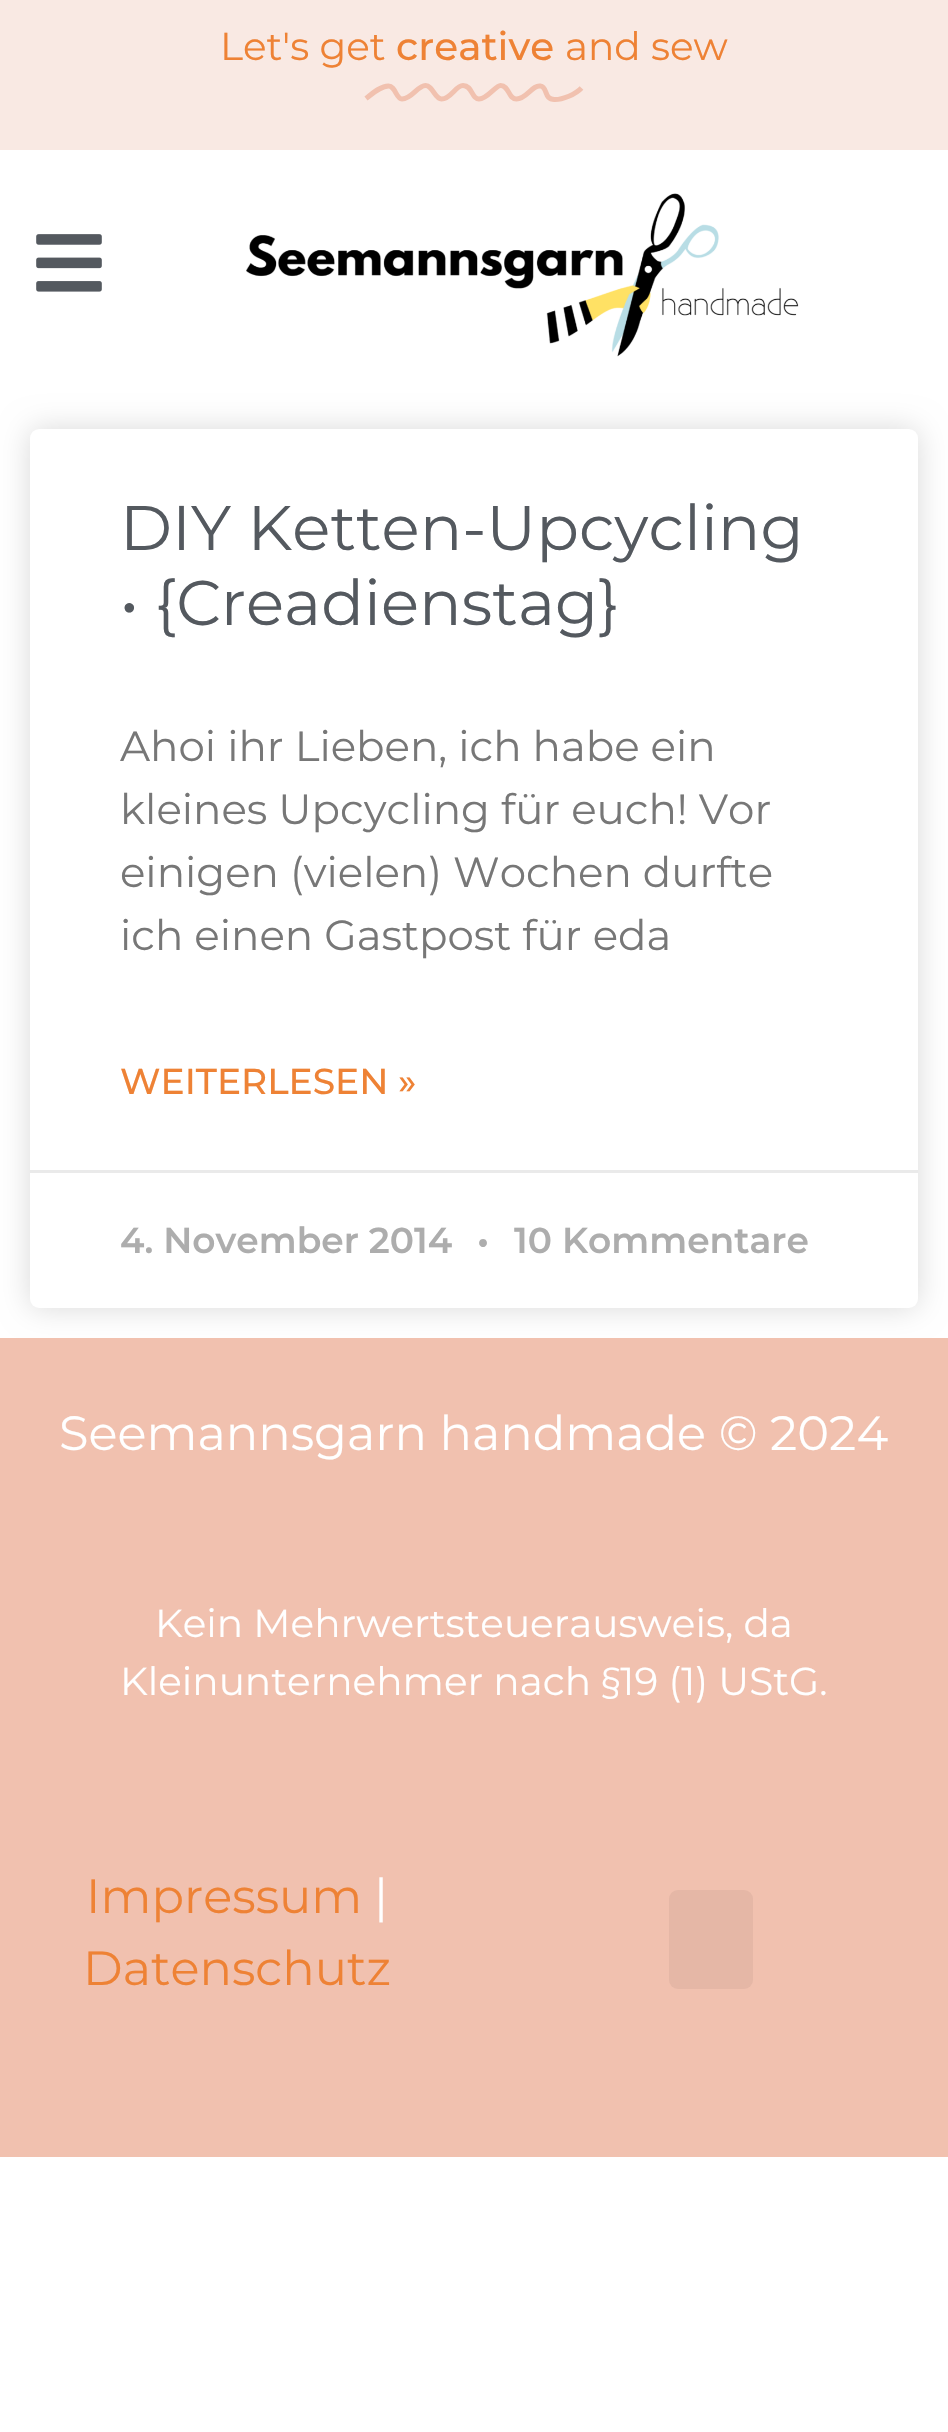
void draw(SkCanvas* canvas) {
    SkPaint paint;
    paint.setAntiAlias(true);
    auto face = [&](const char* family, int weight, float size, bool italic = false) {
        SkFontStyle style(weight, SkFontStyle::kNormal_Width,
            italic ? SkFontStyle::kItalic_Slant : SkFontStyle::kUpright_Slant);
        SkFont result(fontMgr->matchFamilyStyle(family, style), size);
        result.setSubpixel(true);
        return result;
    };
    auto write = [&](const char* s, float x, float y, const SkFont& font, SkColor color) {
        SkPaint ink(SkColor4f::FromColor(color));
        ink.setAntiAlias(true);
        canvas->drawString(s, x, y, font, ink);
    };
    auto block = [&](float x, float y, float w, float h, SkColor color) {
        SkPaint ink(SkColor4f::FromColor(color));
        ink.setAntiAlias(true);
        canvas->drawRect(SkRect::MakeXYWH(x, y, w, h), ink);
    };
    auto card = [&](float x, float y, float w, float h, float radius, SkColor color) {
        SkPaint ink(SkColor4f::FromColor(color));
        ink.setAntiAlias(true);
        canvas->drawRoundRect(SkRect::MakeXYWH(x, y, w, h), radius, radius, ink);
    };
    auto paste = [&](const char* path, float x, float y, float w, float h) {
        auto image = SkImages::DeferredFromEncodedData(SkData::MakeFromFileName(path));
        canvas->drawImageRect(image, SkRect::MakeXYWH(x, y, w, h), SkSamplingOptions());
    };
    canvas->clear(SK_ColorWHITE);
    block(0, 0, 948, 150, SkColorSetRGB(249, 233, 227));
    auto kFont1 = face("Montserrat", 400, 39);
    write("Let's get", 220, 60, kFont1, SkColorSetRGB(238, 130, 53));
    auto kFont2 = face("Montserrat", 500, 39);
    write("creative", 396, 60, kFont2, SkColorSetRGB(238, 130, 53));
    paint.setStyle(SkPaint::kStroke_Style);
    paint.setStrokeWidth(5);
    paint.setColor(SkColorSetRGB(241, 193, 175));
    canvas->drawPath(SkPathBuilder().moveTo(366, 98.5f).cubicTo(373.5f, 92.5f, 381, 86, 388.5f, 86).cubicTo(395.5f, 86, 396, 99, 402, 99).cubicTo(412, 99, 417.5f, 85.5f, 425.5f, 85.5f).cubicTo(433, 85.5f, 434.5f, 99, 441.5f, 99).cubicTo(451, 99, 455.5f, 85.5f, 463, 85.5f).cubicTo(472.5f, 85.5f, 471.5f, 99, 479, 99).cubicTo(487.5f, 99, 495.5f, 85.5f, 500.5f, 85.5f).cubicTo(509.5f, 85.5f, 508, 99, 516.5f, 99).cubicTo(526.5f, 99, 532.5f, 84.5f, 540.5f, 86).cubicTo(548, 87, 543.5f, 100, 555, 99.5f).cubicTo(562.5f, 99.5f, 575.5f, 94.5f, 581.5f, 88).detach(), paint);
    write("and sew", 565, 60, kFont1, SkColorSetRGB(238, 130, 53));
    paste("pic1.png", 36, 234, 66, 58);
    paste("pic2.png", 246, 193, 553, 164);
    paint.setStyle(SkPaint::kFill_Style);
    paint.setColor(SkColorSetARGB(38, 0, 0, 0));
    paint.setMaskFilter(SkMaskFilter::MakeBlur(kNormal_SkBlurStyle, 15));
    canvas->drawRoundRect(SkRect::MakeXYWH(30, 429, 888, 879), 9, 9, paint);
    paint.setMaskFilter(nullptr);
    card(30, 429, 888, 879, 9, SK_ColorWHITE);
    auto kFont3 = face("Montserrat", 400, 63);
    write("DIY Ketten-Upcycling", 120, 550, kFont3, SkColorSetRGB(84, 89, 95));
    write("• {Creadienstag}", 120, 625, kFont3, SkColorSetRGB(84, 89, 95));
    auto kFont4 = face("Montserrat", 400, 42);
    write("Ahoi ihr Lieben, ich habe ein", 120, 761, kFont4, SkColorSetRGB(119, 119, 119));
    write("kleines Upcycling für euch! Vor", 120, 824, kFont4, SkColorSetRGB(119, 119, 119));
    write("einigen (vielen) Wochen durfte", 120, 887, kFont4, SkColorSetRGB(119, 119, 119));
    write("ich einen Gastpost für eda", 120, 950, kFont4, SkColorSetRGB(119, 119, 119));
    auto kFont5 = face("Montserrat", 500, 36);
    write("WEITERLESEN »", 120, 1094, kFont5, SkColorSetRGB(238, 130, 53));
    block(30, 1170, 888, 3, SkColorSetRGB(234, 234, 234));
    auto kFont6 = face("Montserrat", 600, 36);
    write("4. November 2014", 120, 1253, kFont6, SkColorSetRGB(173, 173, 173));
    write("•", 477, 1253, kFont6, SkColorSetRGB(173, 173, 173));
    write("10 Kommentare", 514, 1253, kFont6, SkColorSetRGB(173, 173, 173));
    block(0, 1338, 948, 819, SkColorSetRGB(241, 193, 175));
    auto kFont7 = face("Montserrat", 400, 48);
    write("Seemannsgarn handmade © 2024", 59, 1450, kFont7, SK_ColorWHITE);
    write("Kein Mehrwertsteuerausweis, da", 155, 1637, kFont1, SK_ColorWHITE);
    write("Kleinunternehmer nach §19 (1) UStG.", 120, 1695, kFont1, SK_ColorWHITE);
    write("Impressum", 86, 1913, kFont7, SkColorSetRGB(238, 130, 53));
    write("|", 374, 1913, kFont7, SK_ColorWHITE);
    write("Datenschutz", 83, 1985, kFont7, SkColorSetRGB(238, 130, 53));
    card(669, 1890, 84, 99, 9, SkColorSetRGB(229, 183, 166));
}
